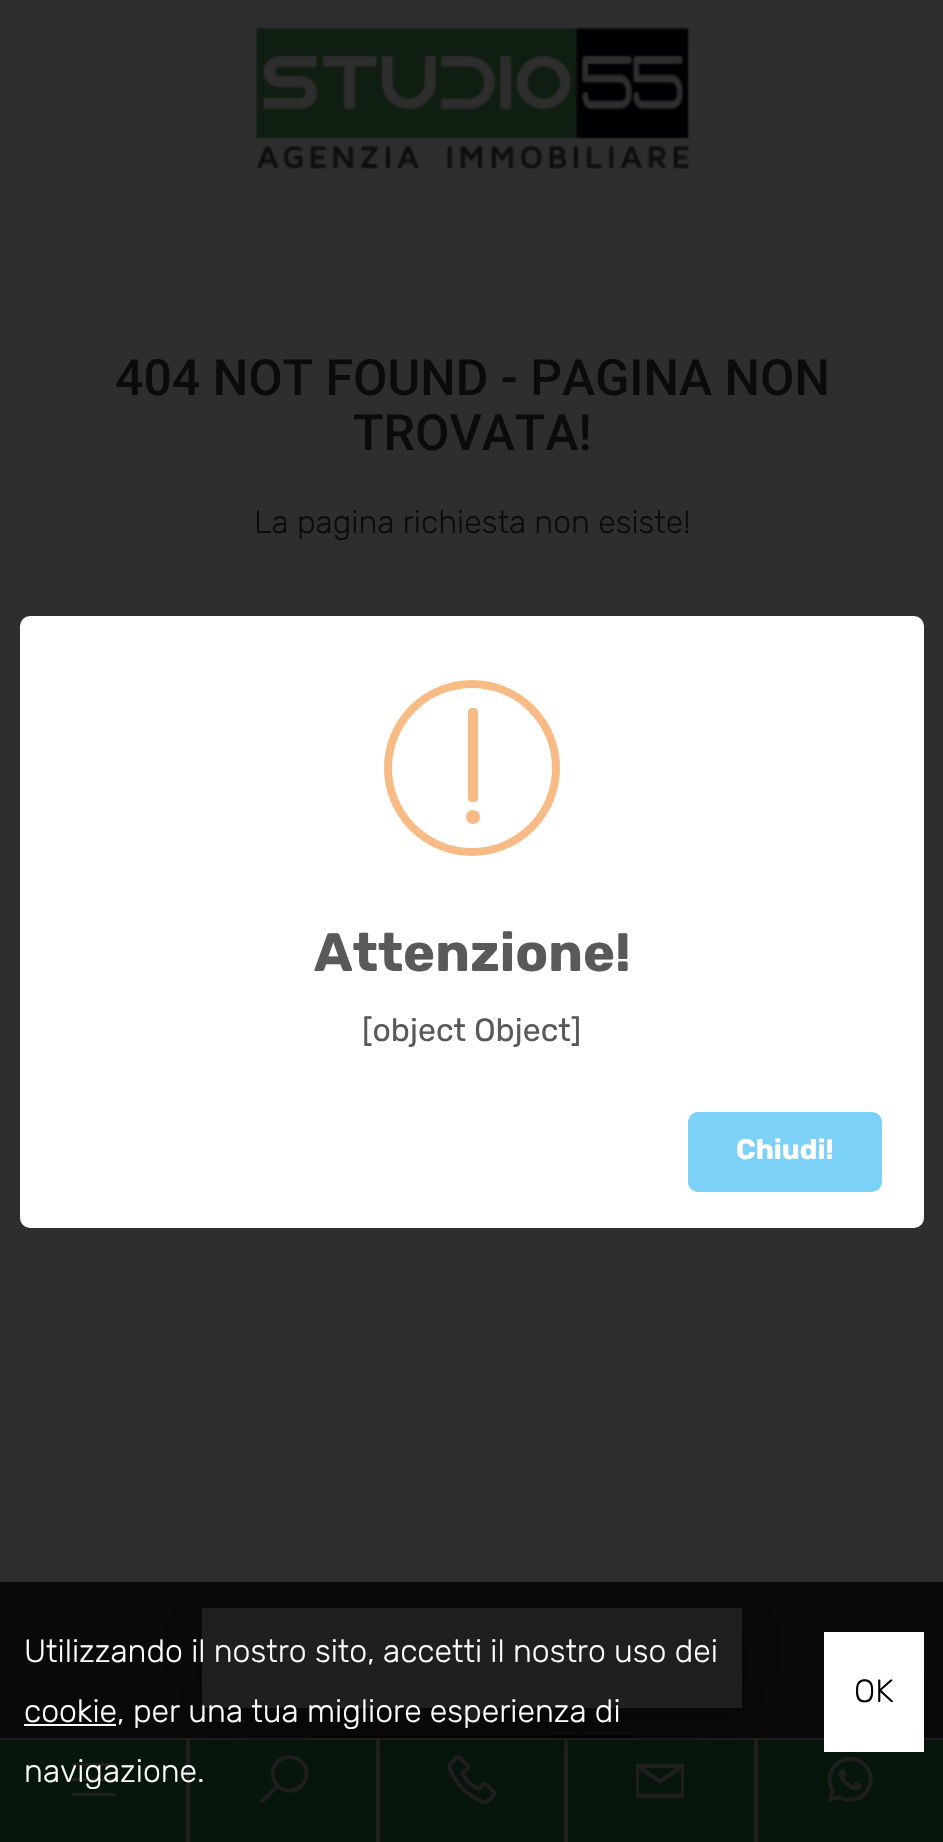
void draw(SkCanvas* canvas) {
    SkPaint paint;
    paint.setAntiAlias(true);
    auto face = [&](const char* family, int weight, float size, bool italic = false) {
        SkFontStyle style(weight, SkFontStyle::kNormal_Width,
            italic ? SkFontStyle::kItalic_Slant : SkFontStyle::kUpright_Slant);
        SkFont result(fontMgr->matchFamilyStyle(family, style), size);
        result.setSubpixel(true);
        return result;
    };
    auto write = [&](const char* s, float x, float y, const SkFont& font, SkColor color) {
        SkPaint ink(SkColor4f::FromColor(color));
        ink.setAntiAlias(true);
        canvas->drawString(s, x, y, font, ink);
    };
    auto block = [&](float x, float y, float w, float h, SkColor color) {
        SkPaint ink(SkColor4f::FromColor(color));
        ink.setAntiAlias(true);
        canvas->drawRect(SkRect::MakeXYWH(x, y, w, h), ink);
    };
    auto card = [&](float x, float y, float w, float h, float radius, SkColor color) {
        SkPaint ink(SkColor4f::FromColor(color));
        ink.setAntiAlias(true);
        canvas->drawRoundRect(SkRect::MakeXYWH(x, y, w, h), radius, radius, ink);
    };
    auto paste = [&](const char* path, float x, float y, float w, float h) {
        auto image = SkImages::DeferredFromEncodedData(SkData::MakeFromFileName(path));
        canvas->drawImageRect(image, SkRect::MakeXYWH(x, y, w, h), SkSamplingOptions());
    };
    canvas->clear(SkColorSetRGB(46, 46, 46));
    paste("pic1.png", 255, 27, 436, 143);
    auto kFont1 = face("Roboto", 500, 50);
    write("404 NOT FOUND - PAGINA NON", 115, 395, kFont1, SkColorSetRGB(11, 11, 11));
    write("TROVATA!", 353, 450, kFont1, SkColorSetRGB(11, 11, 11));
    auto kFont2 = face("Rubik", 300, 32);
    write("La pagina richiesta non esiste!", 254, 533, kFont2, SkColorSetRGB(11, 11, 11));
    card(20, 616, 904, 612, 10, SK_ColorWHITE);
    paint.setStyle(SkPaint::kStroke_Style);
    paint.setStrokeWidth(8);
    paint.setColor(SkColorSetRGB(248, 187, 134));
    canvas->drawCircle(472, 768, 84, paint);
    card(468, 708, 10, 94, 4, SkColorSetRGB(248, 187, 134));
    paint.setStyle(SkPaint::kFill_Style);
    canvas->drawCircle(473, 817, 7, paint);
    auto kFont3 = face("Rubik", 700, 54);
    write("Attenzione!", 314, 971, kFont3, SkColorSetRGB(89, 89, 89));
    auto kFont4 = face("Rubik", 400, 32);
    write("[object Object]", 362, 1041, kFont4, SkColorSetRGB(89, 89, 89));
    card(688, 1112, 194, 80, 10, SkColorSetRGB(124, 209, 249));
    auto kFont5 = face("Rubik", 700, 28);
    write("Chiudi!", 736, 1159, kFont5, SK_ColorWHITE);
    block(0, 1678, 943, 60, SkColorSetRGB(42, 42, 42));
    block(0, 1674, 943, 4, SkColorSetRGB(41, 41, 41));
    paste("pic2.png", 308, 1733, 328, 5);
    block(0, 1740, 186, 102, SkColorSetRGB(30, 108, 50));
    block(0, 1738, 943, 2, SkColorSetRGB(153, 153, 153));
    block(186, 1738, 4, 104, SkColorSetRGB(153, 153, 153));
    block(190, 1740, 186, 102, SkColorSetRGB(30, 108, 50));
    block(376, 1738, 4, 104, SkColorSetRGB(153, 153, 153));
    paste("pic3.png", 260, 1755, 49, 49);
    block(380, 1740, 184, 102, SkColorSetRGB(30, 108, 50));
    block(564, 1738, 4, 104, SkColorSetRGB(153, 153, 153));
    paste("pic4.png", 447, 1755, 50, 49);
    block(568, 1740, 186, 102, SkColorSetRGB(30, 108, 50));
    block(754, 1738, 4, 104, SkColorSetRGB(153, 153, 153));
    paint.setColor(SkColorSetRGB(153, 153, 153));
    canvas->drawPath(SkPathBuilder().moveTo(636, 1764).lineTo(684, 1764).lineTo(684, 1798).lineTo(636, 1798).close().moveTo(644, 1768).lineTo(660, 1779).lineTo(676, 1768).close().moveTo(639, 1770).lineTo(639, 1794).lineTo(681, 1794).lineTo(681, 1770).lineTo(660, 1784).close().detach(), paint);
    block(758, 1740, 185, 102, SkColorSetRGB(30, 108, 50));
    paint.setColor(SkColorSetARGB(89, 0, 0, 0));
    paint.setMaskFilter(SkMaskFilter::MakeBlur(kNormal_SkBlurStyle, 20));
    canvas->drawRect(SkRect::MakeXYWH(202, 1618, 540, 100), paint);
    paint.setMaskFilter(nullptr);
    block(202, 1608, 540, 100, SkColorSetRGB(153, 153, 153));
    paint.setColor(SkColorSetRGB(153, 153, 153));
    canvas->drawPath(SkPathBuilder().moveTo(456, 1708).lineTo(488, 1708).lineTo(472, 1724).close().detach(), paint);
    canvas->drawPath(SkPathBuilder().moveTo(72, 1763).lineTo(116, 1763).lineTo(116, 1766).lineTo(72, 1766).close().moveTo(72, 1778).lineTo(116, 1778).lineTo(116, 1781).lineTo(72, 1781).close().moveTo(72, 1793).lineTo(116, 1793).lineTo(116, 1796).lineTo(72, 1796).close().detach(), paint);
    paste("pic5.png", 827, 1757, 46, 46);
    block(0, 1582, 943, 260, SkColorSetARGB(204, 0, 0, 0));
    write("Utilizzando il nostro sito, accetti il nostro uso dei", 24, 1662, kFont2, SK_ColorWHITE);
    block(824, 1632, 100, 120, SK_ColorWHITE);
    write("OK", 854, 1702, kFont2, SK_ColorBLACK);
    block(24, 1724, 92, 2, SK_ColorWHITE);
    write("cookie, per una tua migliore esperienza di", 24, 1722, kFont2, SK_ColorWHITE);
    write("navigazione.", 24, 1782, kFont2, SK_ColorWHITE);
}
